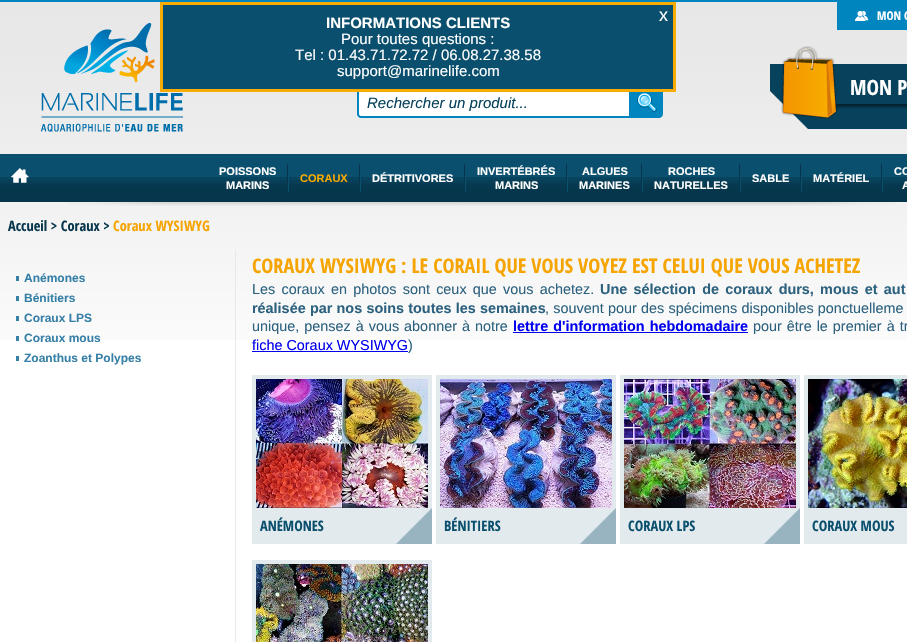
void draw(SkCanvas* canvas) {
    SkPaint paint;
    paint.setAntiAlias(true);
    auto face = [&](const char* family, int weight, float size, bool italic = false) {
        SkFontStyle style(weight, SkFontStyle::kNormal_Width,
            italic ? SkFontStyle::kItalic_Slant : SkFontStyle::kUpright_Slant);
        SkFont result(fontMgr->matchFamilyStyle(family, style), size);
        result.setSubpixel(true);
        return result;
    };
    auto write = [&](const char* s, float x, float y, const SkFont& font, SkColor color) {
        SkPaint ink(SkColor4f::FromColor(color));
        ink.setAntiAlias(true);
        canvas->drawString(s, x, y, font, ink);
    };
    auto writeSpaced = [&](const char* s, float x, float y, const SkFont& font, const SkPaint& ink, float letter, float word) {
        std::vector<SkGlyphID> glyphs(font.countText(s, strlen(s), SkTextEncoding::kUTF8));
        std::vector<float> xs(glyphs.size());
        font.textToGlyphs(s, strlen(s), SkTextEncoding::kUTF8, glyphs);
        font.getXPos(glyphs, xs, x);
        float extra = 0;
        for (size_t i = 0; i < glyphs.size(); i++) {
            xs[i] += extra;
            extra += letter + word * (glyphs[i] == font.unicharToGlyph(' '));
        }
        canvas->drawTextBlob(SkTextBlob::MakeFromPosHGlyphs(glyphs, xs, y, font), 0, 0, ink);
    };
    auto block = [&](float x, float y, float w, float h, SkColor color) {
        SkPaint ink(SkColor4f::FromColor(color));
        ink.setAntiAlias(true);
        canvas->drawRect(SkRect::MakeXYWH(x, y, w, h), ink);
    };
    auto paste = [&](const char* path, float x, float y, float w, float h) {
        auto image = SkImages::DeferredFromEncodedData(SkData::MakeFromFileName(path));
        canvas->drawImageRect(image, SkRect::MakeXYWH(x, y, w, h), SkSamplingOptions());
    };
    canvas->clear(SK_ColorWHITE);
    paste("pic1.png", 0, 2, 907, 338);
    block(0, 0, 907, 2, SkColorSetRGB(0, 133, 191));
    paste("pic3.png", 41, 23, 142, 109);
    paint.setColor(SK_ColorWHITE);
    canvas->drawPath(SkPathBuilder().moveTo(361, 87).lineTo(630, 87).lineTo(630, 117).lineTo(361, 117).cubicTo(359.5f, 117, 358, 115.5f, 358, 114).lineTo(358, 90).cubicTo(358, 88.5f, 359.5f, 87, 361, 87).close().detach(), paint);
    paint.setStyle(SkPaint::kStroke_Style);
    paint.setStrokeWidth(2);
    paint.setColor(SkColorSetRGB(0, 133, 191));
    canvas->drawPath(SkPathBuilder().moveTo(361, 87).lineTo(630, 87).lineTo(630, 117).lineTo(361, 117).cubicTo(359.5f, 117, 358, 115.5f, 358, 114).lineTo(358, 90).cubicTo(358, 88.5f, 359.5f, 87, 361, 87).close().detach(), paint);
    paint.setStyle(SkPaint::kFill_Style);
    canvas->drawPath(SkPathBuilder().moveTo(631, 86).lineTo(659, 86).cubicTo(661, 86, 663, 88, 663, 90).lineTo(663, 114).cubicTo(663, 116, 661, 118, 659, 118).lineTo(631, 118).close().detach(), paint);
    paint.setColor(SkColorSetRGB(10, 79, 109));
    canvas->drawRect(SkRect::MakeXYWH(161.5f, 3.5f, 513, 87), paint);
    paint.setStyle(SkPaint::kStroke_Style);
    paint.setStrokeWidth(3);
    paint.setColor(SkColorSetRGB(248, 171, 0));
    canvas->drawRect(SkRect::MakeXYWH(161.5f, 3.5f, 513, 87), paint);
    auto kFont1 = face("Liberation Sans", 400, 18);
    write("x", 659, 21, kFont1, SK_ColorWHITE);
    auto kFont2 = face("Liberation Sans", 700, 15);
    write("INFORMATIONS CLIENTS", 326, 28, kFont2, SK_ColorWHITE);
    auto kFont3 = face("Liberation Sans", 400, 15);
    write("Pour toutes questions :", 341, 44, kFont3, SK_ColorWHITE);
    write("Tel : 01.43.71.72.72 / 06.08.27.38.58", 295, 60, kFont3, SK_ColorWHITE);
    write("support@marinelife.com", 337, 76, kFont3, SK_ColorWHITE);
    block(837, 2, 70, 28, SkColorSetRGB(0, 133, 191));
    paste("pic2.png", 855, 11, 14, 10);
    auto kFont4 = face("Open Sans Condensed", 700, 12);
    write("MON C", 877, 20, kFont4, SK_ColorWHITE);
    paste("pic4.png", 770, 64, 137, 65);
    paste("pic6.png", 835, 104, 72, 5);
    paste("pic5.png", 781, 46, 57, 73);
    auto kFont5 = face("Open Sans Condensed", 700, 21);
    write("MON P", 850, 95, kFont5, SK_ColorWHITE);
    auto kFont6 = face("Liberation Sans", 400, 15, true);
    write("Rechercher un produit...", 367, 108, kFont6, SkColorSetRGB(6, 66, 92));
    paste("pic7.png", 637, 93, 20, 20);
    paste("pic9.png", 0, 154, 907, 48);
    paste("pic8.png", 11, 168, 18, 15);
    block(287, 164, 1, 28, SkColorSetRGB(6, 54, 76));
    auto kFont7 = face("Liberation Sans", 700, 11);
    write("POISSONS", 219, 175, kFont7, SK_ColorWHITE);
    write("MARINS", 226, 189, kFont7, SK_ColorWHITE);
    block(359, 164, 1, 28, SkColorSetRGB(6, 54, 76));
    block(288, 177, 1, 15, SkColorSetRGB(10, 79, 109));
    write("CORAUX", 300, 182, kFont7, SkColorSetRGB(248, 171, 0));
    block(464, 164, 1, 28, SkColorSetRGB(6, 54, 76));
    block(360, 177, 1, 15, SkColorSetRGB(10, 79, 109));
    write("DÉTRITIVORES", 372, 182, kFont7, SK_ColorWHITE);
    block(566, 164, 1, 28, SkColorSetRGB(6, 54, 76));
    block(465, 177, 1, 15, SkColorSetRGB(10, 79, 109));
    write("INVERTÉBRÉS", 477, 175, kFont7, SK_ColorWHITE);
    write("MARINS", 495, 189, kFont7, SK_ColorWHITE);
    block(641, 164, 1, 28, SkColorSetRGB(6, 54, 76));
    block(567, 177, 1, 15, SkColorSetRGB(10, 79, 109));
    write("ALGUES", 582, 175, kFont7, SK_ColorWHITE);
    write("MARINES", 579, 189, kFont7, SK_ColorWHITE);
    block(739, 164, 1, 28, SkColorSetRGB(6, 54, 76));
    block(642, 177, 1, 15, SkColorSetRGB(10, 79, 109));
    write("ROCHES", 668, 175, kFont7, SK_ColorWHITE);
    write("NATURELLES", 654, 189, kFont7, SK_ColorWHITE);
    block(800, 164, 1, 28, SkColorSetRGB(6, 54, 76));
    block(740, 177, 1, 15, SkColorSetRGB(10, 79, 109));
    write("SABLE", 752, 182, kFont7, SK_ColorWHITE);
    block(881, 164, 1, 28, SkColorSetRGB(6, 54, 76));
    block(801, 177, 1, 15, SkColorSetRGB(10, 79, 109));
    write("MATÉRIEL", 813, 182, kFont7, SK_ColorWHITE);
    block(882, 177, 1, 15, SkColorSetRGB(10, 79, 109));
    write("CO", 894, 175, kFont7, SK_ColorWHITE);
    write("A", 902, 189, kFont7, SK_ColorWHITE);
    paste("pic10.png", 68, 202, 828, 4);
    auto kFont8 = face("Open Sans Condensed", 700, 14.4f);
    write("Accueil > Coraux >", 8, 231, kFont8, SkColorSetRGB(6, 55, 77));
    write("Coraux WYSIWYG", 113, 231, kFont8, SkColorSetRGB(246, 164, 0));
    block(16, 276, 3, 5, SkColorSetRGB(54, 127, 167));
    auto kFont9 = face("Liberation Sans", 700, 12);
    write("Anémones", 24, 282, kFont9, SkColorSetRGB(54, 127, 167));
    block(16, 296, 3, 5, SkColorSetRGB(54, 127, 167));
    write("Bénitiers", 24, 302, kFont9, SkColorSetRGB(54, 127, 167));
    block(16, 316, 3, 5, SkColorSetRGB(54, 127, 167));
    write("Coraux LPS", 24, 322, kFont9, SkColorSetRGB(54, 127, 167));
    block(16, 336, 3, 5, SkColorSetRGB(54, 127, 167));
    write("Coraux mous", 24, 342, kFont9, SkColorSetRGB(54, 127, 167));
    block(16, 356, 3, 5, SkColorSetRGB(54, 127, 167));
    write("Zoanthus et Polypes", 24, 362, kFont9, SkColorSetRGB(54, 127, 167));
    block(235, 250, 1, 392, SkColorSetRGB(232, 232, 232));
    auto kFont10 = face("Open Sans Condensed", 700, 20.15f);
    write("CORAUX WYSIWYG : LE CORAIL QUE VOUS VOYEZ EST CELUI QUE VOUS ACHETEZ", 252, 273, kFont10, SkColorSetRGB(246, 164, 0));
    auto kFont11 = face("Liberation Sans", 400, 14.4f);
    paint.setStyle(SkPaint::kFill_Style);
    paint.setColor(SkColorSetRGB(45, 98, 127));
    writeSpaced("Les coraux en photos sont ceux que vous achetez.", 252, 294, kFont11, paint, 0, 2.25f);
    auto kFont12 = face("Liberation Sans", 700, 14.4f);
    writeSpaced("Une sélection de coraux durs, mous et aut", 600, 294, kFont12, paint, 0, 2.25f);
    writeSpaced("réalisée par nos soins toutes les semaines", 252, 313, kFont12, paint, 0, 0.25f);
    writeSpaced(", souvent pour des spécimens disponibles ponctuelleme", 545, 313, kFont11, paint, 0, 0.25f);
    writeSpaced("unique, pensez à vous abonner à notre", 252, 331, kFont11, paint, 0, 1);
    paint.setColor(SkColorSetRGB(0, 0, 238));
    writeSpaced("lettre d'information hebdomadaire", 513, 331, kFont12, paint, 0, 1);
    block(513, 332, 235, 1, SkColorSetRGB(0, 0, 238));
    paint.setColor(SkColorSetRGB(45, 98, 127));
    writeSpaced("pour être le premier à tr", 753, 331, kFont11, paint, 0, 1);
    write("fiche Coraux WYSIWYG", 252, 350, kFont11, SkColorSetRGB(0, 0, 238));
    block(252, 351, 156, 1, SkColorSetRGB(0, 0, 238));
    write(")", 408, 350, kFont11, SkColorSetRGB(45, 98, 127));
    block(252, 375, 180, 169, SkColorSetRGB(227, 234, 237));
    paste("pic11.png", 256, 379, 172, 129);
    write("ANÉMONES", 260, 531, kFont8, SkColorSetRGB(10, 79, 109));
    paste("pic12.png", 396, 508, 36, 36);
    block(436, 375, 180, 169, SkColorSetRGB(227, 234, 237));
    paste("pic13.png", 440, 379, 172, 129);
    write("BÉNITIERS", 444, 531, kFont8, SkColorSetRGB(10, 79, 109));
    paste("pic12.png", 580, 508, 36, 36);
    block(620, 375, 180, 169, SkColorSetRGB(227, 234, 237));
    paste("pic14.png", 624, 379, 172, 129);
    write("CORAUX LPS", 628, 531, kFont8, SkColorSetRGB(10, 79, 109));
    paste("pic12.png", 764, 508, 36, 36);
    block(804, 375, 103, 169, SkColorSetRGB(227, 234, 237));
    paste("pic15.png", 808, 379, 99, 129);
    write("CORAUX MOUS", 812, 531, kFont8, SkColorSetRGB(10, 79, 109));
    block(252, 560, 180, 82, SkColorSetRGB(227, 234, 237));
    paste("pic16.png", 256, 564, 172, 78);
}
